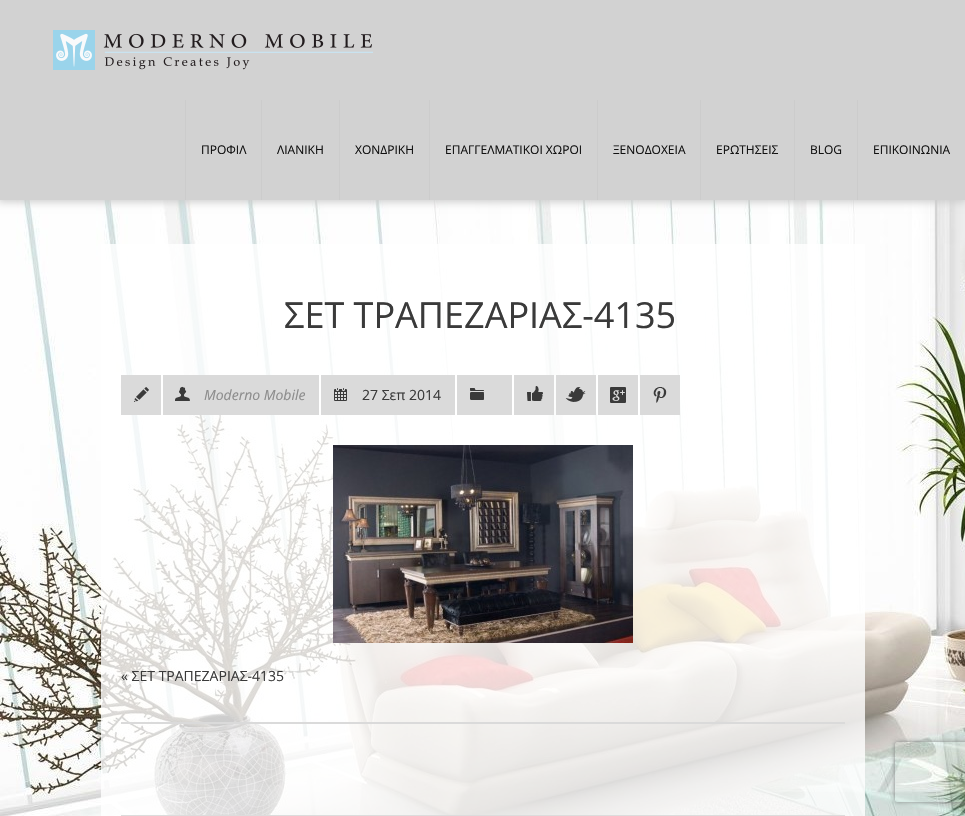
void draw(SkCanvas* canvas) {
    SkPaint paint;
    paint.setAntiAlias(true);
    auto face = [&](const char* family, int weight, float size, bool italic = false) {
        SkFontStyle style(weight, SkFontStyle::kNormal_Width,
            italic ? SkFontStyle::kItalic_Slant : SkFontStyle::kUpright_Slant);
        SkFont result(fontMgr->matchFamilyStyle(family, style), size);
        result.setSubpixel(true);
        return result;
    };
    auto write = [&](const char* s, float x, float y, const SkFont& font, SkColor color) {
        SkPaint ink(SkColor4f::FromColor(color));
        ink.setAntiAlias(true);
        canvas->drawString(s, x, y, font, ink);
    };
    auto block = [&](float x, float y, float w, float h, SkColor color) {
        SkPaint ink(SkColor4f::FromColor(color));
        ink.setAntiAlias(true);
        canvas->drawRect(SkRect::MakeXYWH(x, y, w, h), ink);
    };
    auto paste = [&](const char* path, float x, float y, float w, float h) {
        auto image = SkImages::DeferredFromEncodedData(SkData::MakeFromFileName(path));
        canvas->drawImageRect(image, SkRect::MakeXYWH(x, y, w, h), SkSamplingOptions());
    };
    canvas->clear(SK_ColorWHITE);
    paste("pic1.png", 0, 200, 965, 616);
    paint.setColor(SkColorSetRGB(204, 204, 204));
    paint.setMaskFilter(SkMaskFilter::MakeBlur(kNormal_SkBlurStyle, 4));
    canvas->drawRect(SkRect::MakeXYWH(-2, -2, 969, 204), paint);
    paint.setMaskFilter(nullptr);
    block(0, 0, 965, 200, SkColorSetRGB(210, 210, 210));
    paste("pic2.png", 53, 30, 320, 40);
    block(185, 100, 1, 100, SkColorSetRGB(204, 204, 204));
    auto kFont1 = face("Open Sans", 400, 12);
    write("ΠΡΟΦΙΛ", 201, 154, kFont1, SkColorSetRGB(17, 17, 17));
    block(261, 100, 1, 100, SkColorSetRGB(204, 204, 204));
    write("ΛΙΑΝΙΚΗ", 277, 154, kFont1, SkColorSetRGB(17, 17, 17));
    block(339, 100, 1, 100, SkColorSetRGB(204, 204, 204));
    write("ΧΟΝΔΡΙΚΗ", 355, 154, kFont1, SkColorSetRGB(17, 17, 17));
    block(429, 100, 1, 100, SkColorSetRGB(204, 204, 204));
    write("ΕΠΑΓΓΕΛΜΑΤΙΚΟΙ ΧΩΡΟΙ", 445, 154, kFont1, SkColorSetRGB(17, 17, 17));
    block(597, 100, 1, 100, SkColorSetRGB(204, 204, 204));
    write("ΞΕΝΟΔΟΧΕΙΑ", 613, 154, kFont1, SkColorSetRGB(17, 17, 17));
    block(700, 100, 1, 100, SkColorSetRGB(204, 204, 204));
    write("ΕΡΩΤΗΣΕΙΣ", 716, 154, kFont1, SkColorSetRGB(17, 17, 17));
    block(794, 100, 1, 100, SkColorSetRGB(204, 204, 204));
    write("BLOG", 810, 154, kFont1, SkColorSetRGB(17, 17, 17));
    block(857, 100, 1, 100, SkColorSetRGB(204, 204, 204));
    write("ΕΠΙΚΟΙΝΩΝΙΑ", 873, 154, kFont1, SkColorSetRGB(17, 17, 17));
    block(101, 244, 764, 572, SkColorSetARGB(204, 255, 255, 255));
    auto kFont2 = face("Open Sans", 400, 36);
    write("ΣΕΤ ΤΡΑΠΕΖΑΡΙΑΣ-4135", 284, 328, kFont2, SkColorSetRGB(58, 58, 58));
    block(121, 722, 724, 2, SkColorSetRGB(218, 218, 218));
    block(121, 375, 40, 40, SkColorSetRGB(218, 218, 218));
    paste("pic3.png", 134, 387, 15, 15);
    block(163, 375, 156, 40, SkColorSetRGB(218, 218, 218));
    paste("pic4.png", 175, 386, 15, 15);
    auto kFont3 = face("Open Sans", 400, 14, true);
    write("Moderno Mobile", 204, 400, kFont3, SkColorSetRGB(140, 140, 140));
    block(321, 375, 134, 40, SkColorSetRGB(218, 218, 218));
    paste("pic5.png", 334, 388, 13, 13);
    auto kFont4 = face("Open Sans", 400, 14);
    write("27 Σεπ 2014", 362, 400, kFont4, SkColorSetRGB(58, 58, 58));
    block(457, 375, 55, 40, SkColorSetRGB(218, 218, 218));
    paste("pic6.png", 470, 388, 14, 12);
    block(514, 375, 40, 40, SkColorSetRGB(218, 218, 218));
    paste("pic7.png", 527, 386, 16, 15);
    block(556, 375, 40, 40, SkColorSetRGB(218, 218, 218));
    paste("pic8.png", 565, 387, 21, 15);
    block(598, 375, 40, 40, SkColorSetRGB(218, 218, 218));
    paste("pic9.png", 610, 387, 16, 16);
    block(640, 375, 40, 40, SkColorSetRGB(218, 218, 218));
    paste("pic10.png", 653, 387, 14, 16);
    paste("pic11.png", 333, 445, 300, 198);
    write("« ΣΕΤ ΤΡΑΠΕΖΑΡΙΑΣ-4135", 121, 681, kFont4, SkColorSetRGB(58, 58, 58));
    block(121, 815, 724, 1, SkColorSetRGB(220, 220, 220));
    canvas->save();
    canvas->clipPath(SkPathBuilder(SkPathFillType::kEvenOdd).moveTo(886, 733).lineTo(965, 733).lineTo(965, 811).lineTo(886, 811).close().moveTo(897, 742).lineTo(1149, 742).cubicTo(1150, 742, 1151, 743, 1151, 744).lineTo(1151, 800).cubicTo(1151, 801, 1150, 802, 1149, 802).lineTo(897, 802).cubicTo(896, 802, 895, 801, 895, 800).lineTo(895, 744).cubicTo(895, 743, 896, 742, 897, 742).close().detach(), true);
    paint.setColor(SkColorSetRGB(128, 128, 128));
    paint.setMaskFilter(SkMaskFilter::MakeBlur(kNormal_SkBlurStyle, 2.5f));
    canvas->drawRoundRect(SkRect::MakeXYWH(895, 742, 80, 60), 2, 2, paint);
    paint.setMaskFilter(nullptr);
    canvas->restore();
}
